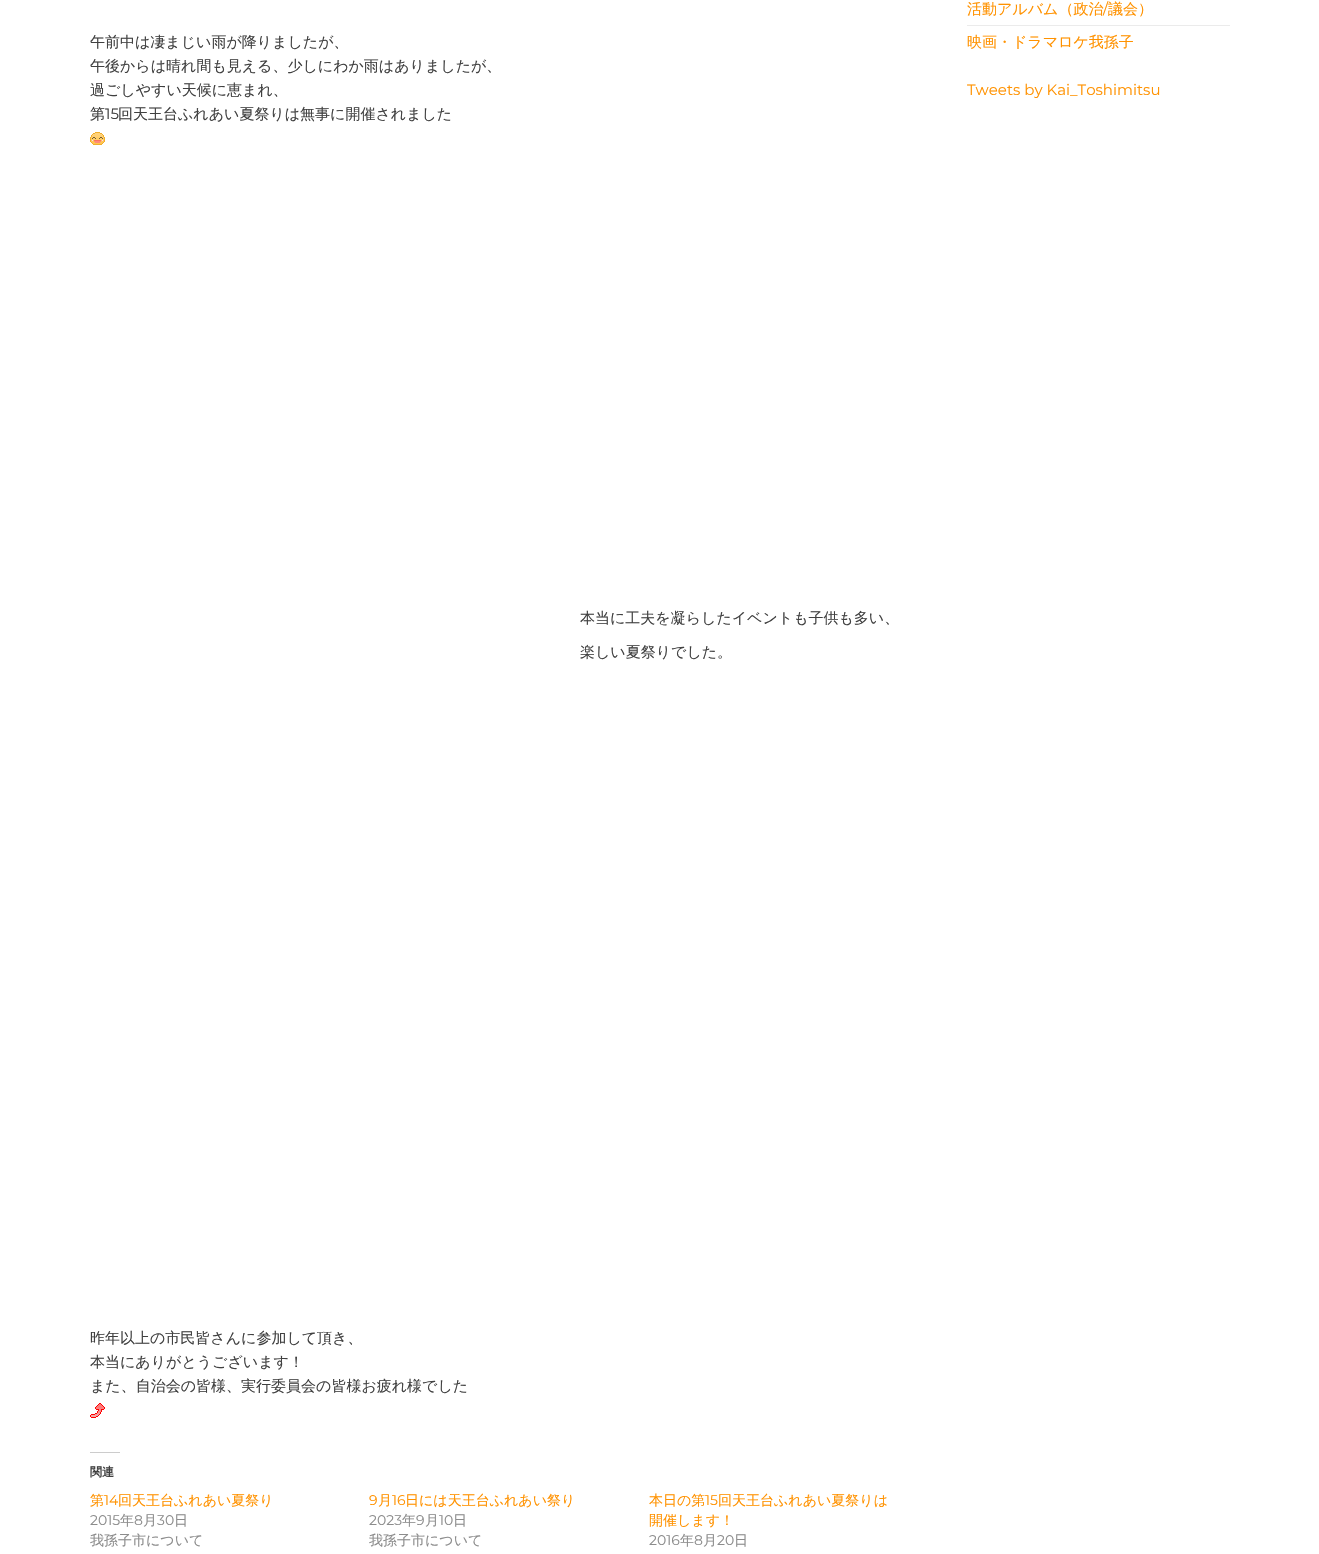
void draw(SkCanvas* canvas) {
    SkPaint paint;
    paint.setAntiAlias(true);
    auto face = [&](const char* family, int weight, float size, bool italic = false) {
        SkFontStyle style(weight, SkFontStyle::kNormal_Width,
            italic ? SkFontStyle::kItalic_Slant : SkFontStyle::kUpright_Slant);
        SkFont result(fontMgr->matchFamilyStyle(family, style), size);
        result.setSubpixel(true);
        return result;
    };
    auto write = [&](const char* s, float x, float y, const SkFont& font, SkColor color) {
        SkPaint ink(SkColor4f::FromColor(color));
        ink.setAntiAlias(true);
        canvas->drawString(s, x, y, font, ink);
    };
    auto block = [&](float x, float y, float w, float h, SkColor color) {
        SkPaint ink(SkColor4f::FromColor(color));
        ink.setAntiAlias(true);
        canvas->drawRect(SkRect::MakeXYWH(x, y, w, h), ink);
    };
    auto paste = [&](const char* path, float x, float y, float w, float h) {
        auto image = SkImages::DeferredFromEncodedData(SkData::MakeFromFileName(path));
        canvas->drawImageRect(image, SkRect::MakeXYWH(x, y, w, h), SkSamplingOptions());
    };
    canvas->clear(SK_ColorWHITE);
    auto kFont1 = face("WenQuanYi Zen Hei", 500, 15);
    write("午前中は凄まじい雨が降りましたが、", 90, 47, kFont1, SkColorSetRGB(64, 64, 64));
    write("午後からは晴れ間も見える、少しにわか雨はありましたが、", 90, 71, kFont1, SkColorSetRGB(64, 64, 64));
    write("過ごしやすい天候に恵まれ、", 90, 95, kFont1, SkColorSetRGB(64, 64, 64));
    write("第", 90, 119, kFont1, SkColorSetRGB(64, 64, 64));
    auto kFont2 = face("Montserrat", 400, 15);
    write("15", 105, 119, kFont2, SkColorSetRGB(64, 64, 64));
    write("回天王台ふれあい夏祭りは無事に開催されました", 118, 119, kFont1, SkColorSetRGB(64, 64, 64));
    paste("pic1.png", 90, 132, 15, 13);
    write("本当に工夫を凝らしたイベントも子供も多い、", 580, 623, kFont1, SkColorSetRGB(64, 64, 64));
    write("楽しい夏祭りでした。", 580, 657, kFont1, SkColorSetRGB(64, 64, 64));
    write("昨年以上の市民皆さんに参加して頂き、", 90, 1343, kFont1, SkColorSetRGB(64, 64, 64));
    write("本当にありがとうございます！", 90, 1367, kFont1, SkColorSetRGB(64, 64, 64));
    write("また、自治会の皆様、実行委員会の皆様お疲れ様でした", 90, 1391, kFont1, SkColorSetRGB(64, 64, 64));
    paste("pic2.png", 90, 1403, 15, 15);
    block(90, 1452, 30, 1, SkColorSetRGB(204, 204, 204));
    auto kFont3 = face("WenQuanYi Zen Hei", 700, 12);
    write("関連", 90, 1476, kFont3, SkColorSetRGB(64, 64, 64));
    auto kFont4 = face("WenQuanYi Zen Hei", 500, 14);
    write("第", 90, 1505, kFont4, SkColorSetRGB(255, 146, 0));
    auto kFont5 = face("Montserrat", 400, 14);
    write("14", 104, 1505, kFont5, SkColorSetRGB(255, 146, 0));
    write("回天王台ふれあい夏祭り", 118, 1505, kFont4, SkColorSetRGB(255, 146, 0));
    write("2015", 90, 1525, kFont5, SkColorSetRGB(140, 140, 140));
    write("年", 120, 1525, kFont4, SkColorSetRGB(140, 140, 140));
    write("8", 134, 1525, kFont5, SkColorSetRGB(140, 140, 140));
    write("月", 143, 1525, kFont4, SkColorSetRGB(140, 140, 140));
    write("30", 157, 1525, kFont5, SkColorSetRGB(140, 140, 140));
    write("日", 174, 1525, kFont4, SkColorSetRGB(140, 140, 140));
    write("我孫子市について", 90, 1545, kFont4, SkColorSetRGB(140, 140, 140));
    write("9", 369, 1505, kFont5, SkColorSetRGB(255, 146, 0));
    write("月", 378, 1505, kFont4, SkColorSetRGB(255, 146, 0));
    write("16", 392, 1505, kFont5, SkColorSetRGB(255, 146, 0));
    write("日には天王台ふれあい祭り", 405, 1505, kFont4, SkColorSetRGB(255, 146, 0));
    write("2023", 369, 1525, kFont5, SkColorSetRGB(140, 140, 140));
    write("年", 402, 1525, kFont4, SkColorSetRGB(140, 140, 140));
    write("9", 416, 1525, kFont5, SkColorSetRGB(140, 140, 140));
    write("月", 425, 1525, kFont4, SkColorSetRGB(140, 140, 140));
    write("10", 439, 1525, kFont5, SkColorSetRGB(140, 140, 140));
    write("日", 453, 1525, kFont4, SkColorSetRGB(140, 140, 140));
    write("我孫子市について", 369, 1545, kFont4, SkColorSetRGB(140, 140, 140));
    write("本日の第", 649, 1505, kFont4, SkColorSetRGB(255, 146, 0));
    write("15", 705, 1505, kFont5, SkColorSetRGB(255, 146, 0));
    write("回天王台ふれあい夏祭りは", 718, 1505, kFont4, SkColorSetRGB(255, 146, 0));
    write("開催します！", 649, 1525, kFont4, SkColorSetRGB(255, 146, 0));
    write("2016", 649, 1545, kFont5, SkColorSetRGB(140, 140, 140));
    write("年", 680, 1545, kFont4, SkColorSetRGB(140, 140, 140));
    write("8", 694, 1545, kFont5, SkColorSetRGB(140, 140, 140));
    write("月", 703, 1545, kFont4, SkColorSetRGB(140, 140, 140));
    write("20", 717, 1545, kFont5, SkColorSetRGB(140, 140, 140));
    write("日", 734, 1545, kFont4, SkColorSetRGB(140, 140, 140));
    block(967, 25, 263, 1, SkColorSetRGB(235, 235, 235));
    write("活動アルバム（政治", 967, 14, kFont1, SkColorSetRGB(255, 146, 0));
    write("/", 1103, 14, kFont2, SkColorSetRGB(255, 146, 0));
    write("議会）", 1108, 14, kFont1, SkColorSetRGB(255, 146, 0));
    write("映画・ドラマロケ我孫子", 967, 47, kFont1, SkColorSetRGB(255, 146, 0));
    write("Tweets by Kai_Toshimitsu", 967, 95, kFont2, SkColorSetRGB(255, 146, 0));
}
